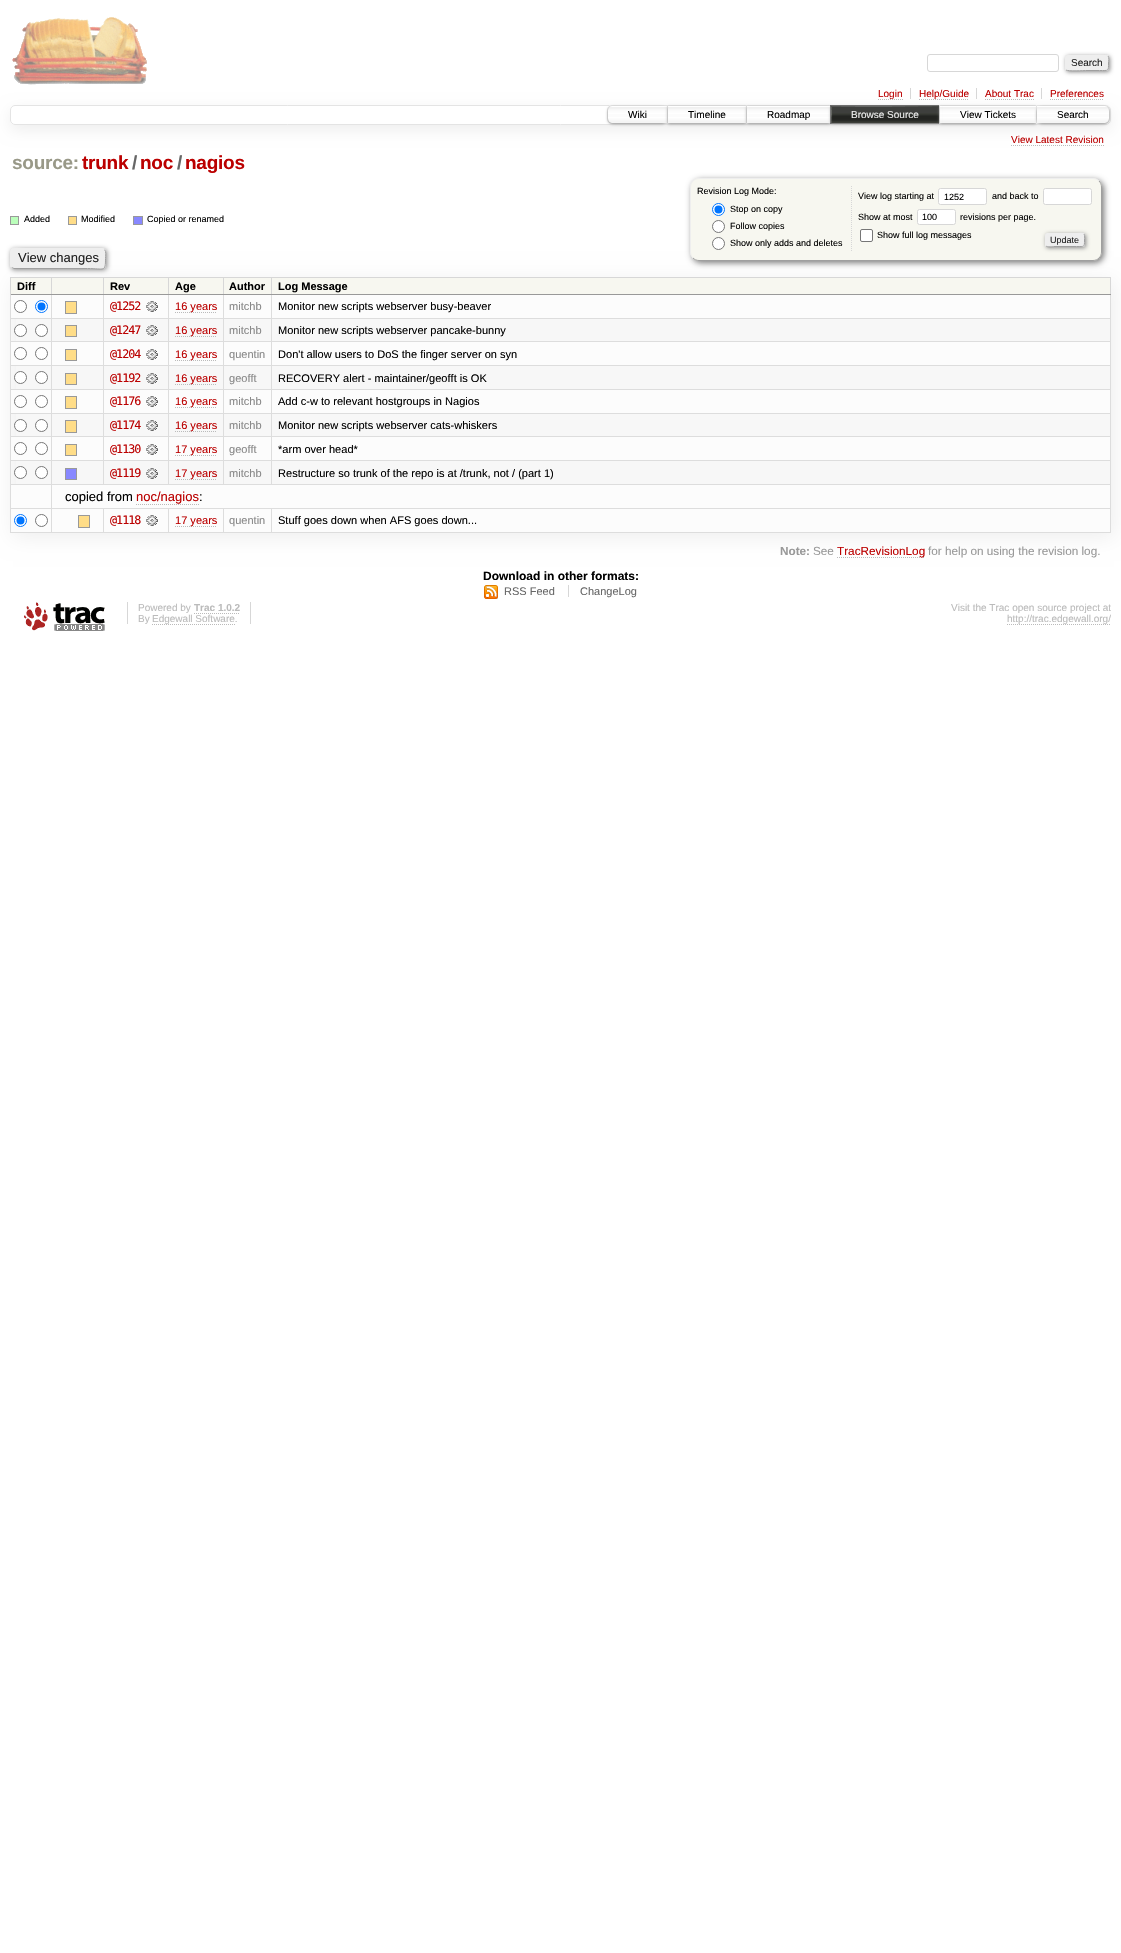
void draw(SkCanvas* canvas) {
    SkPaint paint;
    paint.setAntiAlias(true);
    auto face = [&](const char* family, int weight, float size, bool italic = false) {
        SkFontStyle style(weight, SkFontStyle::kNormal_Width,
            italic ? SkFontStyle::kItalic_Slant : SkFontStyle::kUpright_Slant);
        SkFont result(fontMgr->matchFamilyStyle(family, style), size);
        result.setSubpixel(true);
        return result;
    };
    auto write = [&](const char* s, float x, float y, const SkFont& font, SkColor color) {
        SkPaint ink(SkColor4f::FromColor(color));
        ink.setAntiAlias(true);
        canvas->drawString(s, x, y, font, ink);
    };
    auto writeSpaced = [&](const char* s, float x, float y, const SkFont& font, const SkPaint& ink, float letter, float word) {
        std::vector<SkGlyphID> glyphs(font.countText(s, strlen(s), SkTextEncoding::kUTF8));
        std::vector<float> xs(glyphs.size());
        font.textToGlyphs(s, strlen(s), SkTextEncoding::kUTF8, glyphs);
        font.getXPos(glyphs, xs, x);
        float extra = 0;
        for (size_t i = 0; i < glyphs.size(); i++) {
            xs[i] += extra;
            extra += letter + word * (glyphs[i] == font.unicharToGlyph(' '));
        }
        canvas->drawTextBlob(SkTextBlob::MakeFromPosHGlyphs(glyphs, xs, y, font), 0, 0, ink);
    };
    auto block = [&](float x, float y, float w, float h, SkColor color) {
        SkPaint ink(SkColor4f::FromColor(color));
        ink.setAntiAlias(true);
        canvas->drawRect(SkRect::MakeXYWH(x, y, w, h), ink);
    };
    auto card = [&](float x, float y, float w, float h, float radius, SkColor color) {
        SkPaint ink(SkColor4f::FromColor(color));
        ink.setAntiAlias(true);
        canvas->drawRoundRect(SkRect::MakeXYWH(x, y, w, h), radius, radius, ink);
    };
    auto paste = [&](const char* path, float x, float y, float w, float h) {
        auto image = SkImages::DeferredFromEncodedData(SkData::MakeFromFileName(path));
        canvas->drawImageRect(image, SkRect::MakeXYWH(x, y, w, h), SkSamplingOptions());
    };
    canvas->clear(SK_ColorWHITE);
    paste("pic1.png", 12, 17, 135, 68);
    paint.setStyle(SkPaint::kStroke_Style);
    paint.setStrokeWidth(1);
    paint.setColor(SkColorSetRGB(215, 215, 215));
    canvas->drawRoundRect(SkRect::MakeXYWH(927.5f, 54.5f, 131, 17), 2.5f, 2.5f, paint);
    paint.setStyle(SkPaint::kFill_Style);
    paint.setColor(SkColorSetRGB(136, 136, 136));
    paint.setMaskFilter(SkMaskFilter::MakeBlur(kNormal_SkBlurStyle, 2));
    canvas->drawRoundRect(SkRect::MakeXYWH(1066, 56, 44, 16), 3, 3, paint);
    paint.setMaskFilter(nullptr);
    card(1065, 55, 44, 16, 3, SkColorSetRGB(238, 238, 238));
    paint.setStyle(SkPaint::kStroke_Style);
    paint.setColor(SkColorSetRGB(159, 159, 159));
    canvas->drawPath(SkPathBuilder().moveTo(1108, 56).cubicTo(1109.5f, 58, 1108.5f, 61, 1108.5f, 63).cubicTo(1108.5f, 71.5f, 1109, 70.5f, 1099.5f, 70.5f).lineTo(1087, 70.5f).cubicTo(1084, 70.5f, 1068, 71.5f, 1066, 70).detach(), paint);
    paint.setColor(SkColorSetRGB(238, 238, 238));
    canvas->drawPath(SkPathBuilder().moveTo(1066, 70).cubicTo(1064.5f, 68, 1065.5f, 65, 1065.5f, 63).cubicTo(1065.5f, 54.5f, 1065, 55.5f, 1074.5f, 55.5f).lineTo(1087, 55.5f).cubicTo(1090, 55.5f, 1106, 54.5f, 1108, 56).detach(), paint);
    auto kFont1 = face("Liberation Sans", 400, 10);
    write("Search", 1071, 66, kFont1, SkColorSetRGB(34, 34, 34));
    canvas->save();
    canvas->clipPath(SkPathBuilder(SkPathFillType::kEvenOdd).moveTo(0, 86).lineTo(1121, 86).lineTo(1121, 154).lineTo(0, 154).close().moveTo(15, 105).lineTo(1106, 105).cubicTo(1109, 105, 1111, 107, 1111, 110).lineTo(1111, 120).cubicTo(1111, 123, 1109, 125, 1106, 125).lineTo(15, 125).cubicTo(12, 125, 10, 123, 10, 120).lineTo(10, 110).cubicTo(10, 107, 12, 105, 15, 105).close().detach(), true);
    paint.setStyle(SkPaint::kFill_Style);
    paint.setMaskFilter(SkMaskFilter::MakeBlur(kNormal_SkBlurStyle, 7.5f));
    canvas->drawRoundRect(SkRect::MakeXYWH(10, 110, 1101, 20), 5, 5, paint);
    paint.setMaskFilter(nullptr);
    canvas->restore();
    block(910, 88, 1, 11, SkColorSetRGB(215, 215, 215));
    paint.setStyle(SkPaint::kStroke_Style);
    paint.setColor(SkColorSetRGB(187, 187, 187));
    paint.setPathEffect(SkDashPathEffect::Make({{1, 1}}, 0));
    canvas->drawPath(SkPathBuilder().moveTo(878, 99.5f).lineTo(903, 99.5f).detach(), paint);
    paint.setPathEffect(nullptr);
    write("Login", 878, 97, kFont1, SkColorSetRGB(187, 0, 0));
    block(976, 88, 1, 11, SkColorSetRGB(215, 215, 215));
    paint.setPathEffect(SkDashPathEffect::Make({{1, 1}}, 0));
    canvas->drawPath(SkPathBuilder().moveTo(919, 99.5f).lineTo(969, 99.5f).detach(), paint);
    paint.setPathEffect(nullptr);
    write("Help/Guide", 919, 97, kFont1, SkColorSetRGB(187, 0, 0));
    block(1041, 88, 1, 11, SkColorSetRGB(215, 215, 215));
    write("About Trac", 985, 97, kFont1, SkColorSetRGB(187, 0, 0));
    paint.setPathEffect(SkDashPathEffect::Make({{1, 1}}, 0));
    canvas->drawPath(SkPathBuilder().moveTo(985, 99.5f).lineTo(1034, 99.5f).detach(), paint);
    paint.setPathEffect(nullptr);
    write("Preferences", 1050, 97, kFont1, SkColorSetRGB(187, 0, 0));
    paint.setPathEffect(SkDashPathEffect::Make({{1, 1}}, 0));
    canvas->drawPath(SkPathBuilder().moveTo(1050, 99.5f).lineTo(1104, 99.5f).detach(), paint);
    paint.setPathEffect(nullptr);
    paint.setColor(SkColorSetRGB(228, 228, 228));
    canvas->drawRoundRect(SkRect::MakeXYWH(10.5f, 105.5f, 1100, 19), 4.5f, 4.5f, paint);
    paint.setStyle(SkPaint::kFill_Style);
    paint.setColor(SK_ColorWHITE);
    canvas->drawPath(SkPathBuilder().moveTo(612, 105).lineTo(668, 105).lineTo(668, 124).lineTo(612, 124).cubicTo(609, 124, 607, 122, 607, 119).lineTo(607, 110).cubicTo(607, 107, 609, 105, 612, 105).close().detach(), paint);
    paste("pic2.png", 607, 107, 60, 17);
    paint.setStyle(SkPaint::kStroke_Style);
    paint.setColor(SkColorSetRGB(228, 228, 228));
    canvas->drawPath(SkPathBuilder().moveTo(612, 105.5f).lineTo(667.5f, 105.5f).lineTo(667.5f, 123.5f).lineTo(612, 123.5f).cubicTo(609.5f, 123.5f, 607.5f, 121.5f, 607.5f, 119).lineTo(607.5f, 110).cubicTo(607.5f, 107.5f, 609.5f, 105.5f, 612, 105.5f).close().detach(), paint);
    canvas->save();
    canvas->clipPath(SkPathBuilder(SkPathFillType::kEvenOdd).moveTo(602, 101).lineTo(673, 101).lineTo(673, 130).lineTo(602, 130).close().moveTo(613, 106).lineTo(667, 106).lineTo(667, 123).lineTo(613, 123).cubicTo(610, 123, 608, 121, 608, 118).lineTo(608, 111).cubicTo(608, 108, 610, 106, 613, 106).close().detach(), true);
    paint.setStyle(SkPaint::kFill_Style);
    paint.setColor(SkColorSetRGB(153, 153, 153));
    paint.setMaskFilter(SkMaskFilter::MakeBlur(kNormal_SkBlurStyle, 1.5f));
    canvas->drawRoundRect(SkRect::MakeXYWH(608, 107, 59, 17), 5, 5, paint);
    paint.setMaskFilter(nullptr);
    canvas->restore();
    write("Wiki", 628, 118, kFont1, SK_ColorBLACK);
    block(668, 108, 2, 15, SK_ColorWHITE);
    paste("pic3.png", 668, 107, 78, 16);
    paint.setStyle(SkPaint::kStroke_Style);
    paint.setColor(SkColorSetRGB(228, 228, 228));
    canvas->drawRect(SkRect::MakeXYWH(667.5f, 105.5f, 79, 18), paint);
    canvas->save();
    canvas->clipPath(SkPathBuilder(SkPathFillType::kEvenOdd).moveTo(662, 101).lineTo(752, 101).lineTo(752, 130).lineTo(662, 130).close().moveTo(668, 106).lineTo(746, 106).lineTo(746, 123).lineTo(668, 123).close().detach(), true);
    paint.setStyle(SkPaint::kFill_Style);
    paint.setColor(SkColorSetRGB(153, 153, 153));
    paint.setMaskFilter(SkMaskFilter::MakeBlur(kNormal_SkBlurStyle, 1.5f));
    canvas->drawRect(SkRect::MakeXYWH(668, 107, 78, 17), paint);
    paint.setMaskFilter(nullptr);
    canvas->restore();
    write("Timeline", 688, 118, kFont1, SK_ColorBLACK);
    block(747, 106, 2, 17, SK_ColorWHITE);
    paste("pic4.png", 747, 107, 83, 16);
    paint.setStyle(SkPaint::kStroke_Style);
    paint.setColor(SkColorSetRGB(228, 228, 228));
    canvas->drawRect(SkRect::MakeXYWH(746.5f, 105.5f, 84, 18), paint);
    canvas->save();
    canvas->clipPath(SkPathBuilder(SkPathFillType::kEvenOdd).moveTo(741, 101).lineTo(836, 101).lineTo(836, 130).lineTo(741, 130).close().moveTo(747, 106).lineTo(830, 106).lineTo(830, 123).lineTo(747, 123).close().detach(), true);
    paint.setStyle(SkPaint::kFill_Style);
    paint.setColor(SkColorSetRGB(153, 153, 153));
    paint.setMaskFilter(SkMaskFilter::MakeBlur(kNormal_SkBlurStyle, 1.5f));
    canvas->drawRect(SkRect::MakeXYWH(747, 107, 83, 17), paint);
    paint.setMaskFilter(nullptr);
    canvas->restore();
    write("Roadmap", 767, 118, kFont1, SK_ColorBLACK);
    paint.setStyle(SkPaint::kStroke_Style);
    paint.setColor(SkColorSetRGB(102, 102, 102));
    canvas->drawRect(SkRect::MakeXYWH(830.5f, 105.5f, 109, 18), paint);
    paint.setStyle(SkPaint::kFill_Style);
    paint.setColor(SkColorSetRGB(153, 153, 153));
    paint.setMaskFilter(SkMaskFilter::MakeBlur(kNormal_SkBlurStyle, 1.5f));
    canvas->drawRect(SkRect::MakeXYWH(831, 107, 108, 17), paint);
    paint.setMaskFilter(nullptr);
    block(831, 106, 108, 17, SK_ColorBLACK);
    paste("pic5.png", 831, 106, 108, 17);
    write("Browse Source", 851, 118, kFont1, SkColorSetRGB(238, 238, 238));
    block(940, 106, 2, 17, SK_ColorWHITE);
    paste("pic6.png", 940, 107, 96, 16);
    paint.setStyle(SkPaint::kStroke_Style);
    paint.setColor(SkColorSetRGB(228, 228, 228));
    canvas->drawRect(SkRect::MakeXYWH(939.5f, 105.5f, 97, 18), paint);
    canvas->save();
    canvas->clipPath(SkPathBuilder(SkPathFillType::kEvenOdd).moveTo(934, 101).lineTo(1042, 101).lineTo(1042, 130).lineTo(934, 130).close().moveTo(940, 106).lineTo(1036, 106).lineTo(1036, 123).lineTo(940, 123).close().detach(), true);
    paint.setStyle(SkPaint::kFill_Style);
    paint.setColor(SkColorSetRGB(153, 153, 153));
    paint.setMaskFilter(SkMaskFilter::MakeBlur(kNormal_SkBlurStyle, 1.5f));
    canvas->drawRect(SkRect::MakeXYWH(940, 107, 96, 17), paint);
    paint.setMaskFilter(nullptr);
    canvas->restore();
    write("View Tickets", 960, 118, kFont1, SK_ColorBLACK);
    paint.setColor(SK_ColorWHITE);
    canvas->drawPath(SkPathBuilder().moveTo(1036, 105).lineTo(1105, 105).cubicTo(1108, 105, 1110, 107, 1110, 110).lineTo(1110, 119).cubicTo(1110, 122, 1108, 124, 1105, 124).lineTo(1036, 124).close().detach(), paint);
    paste("pic7.png", 1037, 107, 73, 17);
    paint.setStyle(SkPaint::kStroke_Style);
    paint.setColor(SkColorSetRGB(228, 228, 228));
    canvas->drawPath(SkPathBuilder().moveTo(1036.5f, 105.5f).lineTo(1105, 105.5f).cubicTo(1107.5f, 105.5f, 1109.5f, 107.5f, 1109.5f, 110).lineTo(1109.5f, 119).cubicTo(1109.5f, 121.5f, 1107.5f, 123.5f, 1105, 123.5f).lineTo(1036.5f, 123.5f).close().detach(), paint);
    canvas->save();
    canvas->clipPath(SkPathBuilder(SkPathFillType::kEvenOdd).moveTo(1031, 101).lineTo(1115, 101).lineTo(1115, 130).lineTo(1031, 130).close().moveTo(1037, 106).lineTo(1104, 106).cubicTo(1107, 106, 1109, 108, 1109, 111).lineTo(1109, 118).cubicTo(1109, 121, 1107, 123, 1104, 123).lineTo(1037, 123).close().detach(), true);
    paint.setStyle(SkPaint::kFill_Style);
    paint.setColor(SkColorSetRGB(153, 153, 153));
    paint.setMaskFilter(SkMaskFilter::MakeBlur(kNormal_SkBlurStyle, 1.5f));
    canvas->drawRoundRect(SkRect::MakeXYWH(1037, 107, 72, 17), 5, 5, paint);
    paint.setMaskFilter(nullptr);
    canvas->restore();
    write("Search", 1057, 118, kFont1, SK_ColorBLACK);
    write("View Latest Revision", 1011, 143, kFont1, SkColorSetRGB(187, 0, 0));
    paint.setStyle(SkPaint::kStroke_Style);
    paint.setColor(SkColorSetRGB(187, 187, 187));
    paint.setPathEffect(SkDashPathEffect::Make({{1, 1}}, 0));
    canvas->drawPath(SkPathBuilder().moveTo(1011, 145.5f).lineTo(1104, 145.5f).detach(), paint);
    paint.setPathEffect(nullptr);
    auto kFont2 = face("Liberation Sans", 700, 19);
    paint.setStyle(SkPaint::kFill_Style);
    paint.setColor(SkColorSetRGB(153, 153, 136));
    writeSpaced("source:", 12, 169, kFont2, paint, -0.25f, 0);
    paint.setColor(SkColorSetRGB(187, 0, 0));
    writeSpaced("trunk", 82, 169, kFont2, paint, -0.25f, 0);
    paint.setColor(SkColorSetRGB(102, 102, 102));
    writeSpaced("/", 132, 169, kFont2, paint, -0.25f, 0);
    paint.setColor(SkColorSetRGB(187, 0, 0));
    writeSpaced("noc", 140, 169, kFont2, paint, -0.25f, 0);
    paint.setColor(SkColorSetRGB(102, 102, 102));
    writeSpaced("/", 177, 169, kFont2, paint, -0.25f, 0);
    paint.setColor(SkColorSetRGB(187, 0, 0));
    writeSpaced("nagios", 185, 169, kFont2, paint, -0.25f, 0);
    paint.setColor(SkColorSetRGB(187, 255, 187));
    canvas->drawRect(SkRect::MakeXYWH(10.5f, 216.5f, 8, 8), paint);
    paint.setStyle(SkPaint::kStroke_Style);
    paint.setColor(SkColorSetRGB(153, 153, 153));
    canvas->drawRect(SkRect::MakeXYWH(10.5f, 216.5f, 8, 8), paint);
    auto kFont3 = face("Liberation Sans", 400, 9);
    write("Added", 24, 222, kFont3, SK_ColorBLACK);
    paint.setStyle(SkPaint::kFill_Style);
    paint.setColor(SkColorSetRGB(255, 221, 136));
    canvas->drawRect(SkRect::MakeXYWH(68.5f, 216.5f, 8, 8), paint);
    paint.setStyle(SkPaint::kStroke_Style);
    paint.setColor(SkColorSetRGB(153, 153, 153));
    canvas->drawRect(SkRect::MakeXYWH(68.5f, 216.5f, 8, 8), paint);
    write("Modified", 81, 222, kFont3, SK_ColorBLACK);
    paint.setStyle(SkPaint::kFill_Style);
    paint.setColor(SkColorSetRGB(136, 136, 255));
    canvas->drawRect(SkRect::MakeXYWH(133.5f, 216.5f, 9, 8), paint);
    paint.setStyle(SkPaint::kStroke_Style);
    paint.setColor(SkColorSetRGB(153, 153, 153));
    canvas->drawRect(SkRect::MakeXYWH(133.5f, 216.5f, 9, 8), paint);
    write("Copied or renamed", 147, 222, kFont3, SK_ColorBLACK);
    paint.setStyle(SkPaint::kFill_Style);
    paint.setColor(SkColorSetRGB(119, 119, 119));
    paint.setMaskFilter(SkMaskFilter::MakeBlur(kNormal_SkBlurStyle, 3));
    canvas->drawRoundRect(SkRect::MakeXYWH(692, 180, 412, 83), 9, 9, paint);
    paint.setMaskFilter(nullptr);
    paint.setColor(SkColorSetRGB(238, 238, 238));
    paint.setMaskFilter(SkMaskFilter::MakeBlur(kNormal_SkBlurStyle, 10));
    canvas->drawRect(SkRect::MakeXYWH(13, 281, 1101, 256), paint);
    paint.setMaskFilter(nullptr);
    card(690, 178, 412, 83, 9, SkColorSetRGB(247, 247, 240));
    paint.setStyle(SkPaint::kStroke_Style);
    paint.setColor(SkColorSetRGB(159, 159, 159));
    canvas->drawPath(SkPathBuilder().moveTo(1099, 181).cubicTo(1100.5f, 182.5f, 1101.5f, 184.5f, 1101.5f, 187).lineTo(1101.5f, 252).cubicTo(1101.5f, 254.5f, 1100.5f, 256.5f, 1099, 258).cubicTo(1097.5f, 259.5f, 1095.5f, 260.5f, 1093, 260.5f).lineTo(699, 260.5f).cubicTo(696.5f, 260.5f, 694.5f, 259.5f, 693, 258).detach(), paint);
    paint.setColor(SkColorSetRGB(238, 238, 238));
    canvas->drawPath(SkPathBuilder().moveTo(693, 258).cubicTo(691.5f, 256.5f, 690.5f, 254.5f, 690.5f, 252).lineTo(690.5f, 187).cubicTo(690.5f, 184.5f, 691.5f, 182.5f, 693, 181).cubicTo(694.5f, 179.5f, 696.5f, 178.5f, 699, 178.5f).lineTo(1093, 178.5f).cubicTo(1095.5f, 178.5f, 1097.5f, 179.5f, 1099, 181).detach(), paint);
    paint.setColor(SkColorSetRGB(215, 215, 215));
    paint.setPathEffect(SkDashPathEffect::Make({{1, 1}}, 0));
    canvas->drawPath(SkPathBuilder().moveTo(851.5f, 186).lineTo(851.5f, 252).detach(), paint);
    paint.setPathEffect(nullptr);
    write("Revision Log Mode:", 697, 194, kFont3, SK_ColorBLACK);
    paint.setStyle(SkPaint::kFill_Style);
    paint.setColor(SK_ColorWHITE);
    canvas->drawCircle(718.5f, 209.5f, 6, paint);
    paint.setStyle(SkPaint::kStroke_Style);
    paint.setColor(SkColorSetRGB(0, 117, 255));
    canvas->drawCircle(718.5f, 209.5f, 6, paint);
    paint.setStyle(SkPaint::kFill_Style);
    canvas->drawCircle(718.5f, 209.5f, 4, paint);
    write("Stop on copy", 730, 212, kFont3, SK_ColorBLACK);
    paint.setColor(SK_ColorWHITE);
    canvas->drawCircle(718.5f, 226.5f, 6, paint);
    paint.setStyle(SkPaint::kStroke_Style);
    paint.setColor(SkColorSetRGB(118, 118, 118));
    canvas->drawCircle(718.5f, 226.5f, 6, paint);
    write("Follow copies", 730, 229, kFont3, SK_ColorBLACK);
    paint.setStyle(SkPaint::kFill_Style);
    paint.setColor(SK_ColorWHITE);
    canvas->drawCircle(718.5f, 243.5f, 6, paint);
    paint.setStyle(SkPaint::kStroke_Style);
    paint.setColor(SkColorSetRGB(118, 118, 118));
    canvas->drawCircle(718.5f, 243.5f, 6, paint);
    write("Show only adds and deletes", 730, 246, kFont3, SK_ColorBLACK);
    write("View log starting at", 858, 199, kFont3, SK_ColorBLACK);
    paint.setStyle(SkPaint::kFill_Style);
    paint.setColor(SK_ColorWHITE);
    canvas->drawRoundRect(SkRect::MakeXYWH(938.5f, 188.5f, 48, 16), 2, 2, paint);
    paint.setStyle(SkPaint::kStroke_Style);
    paint.setColor(SkColorSetRGB(215, 215, 215));
    canvas->drawRoundRect(SkRect::MakeXYWH(938.5f, 188.5f, 48, 16), 2, 2, paint);
    write("1252", 944, 200, kFont3, SK_ColorBLACK);
    write("and back to", 992, 199, kFont3, SK_ColorBLACK);
    paint.setStyle(SkPaint::kFill_Style);
    paint.setColor(SK_ColorWHITE);
    canvas->drawRoundRect(SkRect::MakeXYWH(1043.5f, 188.5f, 48, 16), 2, 2, paint);
    paint.setStyle(SkPaint::kStroke_Style);
    paint.setColor(SkColorSetRGB(215, 215, 215));
    canvas->drawRoundRect(SkRect::MakeXYWH(1043.5f, 188.5f, 48, 16), 2, 2, paint);
    write("Show at most", 858, 220, kFont3, SK_ColorBLACK);
    paint.setStyle(SkPaint::kFill_Style);
    paint.setColor(SK_ColorWHITE);
    canvas->drawRoundRect(SkRect::MakeXYWH(917.5f, 209.5f, 38, 15), 2, 2, paint);
    paint.setStyle(SkPaint::kStroke_Style);
    paint.setColor(SkColorSetRGB(215, 215, 215));
    canvas->drawRoundRect(SkRect::MakeXYWH(917.5f, 209.5f, 38, 15), 2, 2, paint);
    write("100", 922, 220, kFont3, SK_ColorBLACK);
    write("revisions per page.", 960, 220, kFont3, SK_ColorBLACK);
    paint.setStyle(SkPaint::kFill_Style);
    paint.setColor(SK_ColorWHITE);
    canvas->drawRoundRect(SkRect::MakeXYWH(860.5f, 229.5f, 12, 12), 1.5f, 1.5f, paint);
    paint.setStyle(SkPaint::kStroke_Style);
    paint.setColor(SkColorSetRGB(118, 118, 118));
    canvas->drawRoundRect(SkRect::MakeXYWH(860.5f, 229.5f, 12, 12), 1.5f, 1.5f, paint);
    write("Show full log messages", 877, 238, kFont3, SK_ColorBLACK);
    paint.setStyle(SkPaint::kFill_Style);
    paint.setColor(SkColorSetRGB(136, 136, 136));
    paint.setMaskFilter(SkMaskFilter::MakeBlur(kNormal_SkBlurStyle, 2));
    canvas->drawRoundRect(SkRect::MakeXYWH(1046, 234, 40, 14), 2.5f, 2.5f, paint);
    paint.setMaskFilter(nullptr);
    card(1045, 233, 40, 14, 2.5f, SkColorSetRGB(238, 238, 238));
    paint.setStyle(SkPaint::kStroke_Style);
    paint.setColor(SkColorSetRGB(159, 159, 159));
    canvas->drawPath(SkPathBuilder().moveTo(1084, 234).cubicTo(1085, 235.5f, 1084.5f, 238.5f, 1084.5f, 240).cubicTo(1084.5f, 247.5f, 1084.5f, 246.5f, 1076.5f, 246.5f).lineTo(1053.5f, 246.5f).cubicTo(1053, 246.5f, 1047.5f, 247.5f, 1046, 246).detach(), paint);
    paint.setColor(SkColorSetRGB(238, 238, 238));
    canvas->drawPath(SkPathBuilder().moveTo(1046, 246).cubicTo(1045, 244.5f, 1045.5f, 241.5f, 1045.5f, 240).cubicTo(1045.5f, 232.5f, 1045.5f, 233.5f, 1053.5f, 233.5f).lineTo(1076.5f, 233.5f).cubicTo(1077, 233.5f, 1082.5f, 232.5f, 1084, 234).detach(), paint);
    write("Update", 1050, 243, kFont3, SkColorSetRGB(34, 34, 34));
    block(11, 278, 1099, 16, SkColorSetRGB(247, 247, 240));
    block(271, 277, 840, 1, SkColorSetRGB(215, 215, 215));
    block(10, 318, 1101, 1, SkColorSetRGB(221, 221, 221));
    block(10, 341, 1101, 1, SkColorSetRGB(221, 221, 221));
    block(10, 365, 1101, 1, SkColorSetRGB(221, 221, 221));
    block(10, 389, 1101, 1, SkColorSetRGB(221, 221, 221));
    block(10, 413, 1101, 1, SkColorSetRGB(221, 221, 221));
    block(10, 436, 1101, 1, SkColorSetRGB(221, 221, 221));
    block(10, 460, 1101, 1, SkColorSetRGB(221, 221, 221));
    block(10, 484, 1101, 1, SkColorSetRGB(221, 221, 221));
    block(10, 508, 1101, 1, SkColorSetRGB(221, 221, 221));
    block(1110, 294, 1, 239, SkColorSetRGB(221, 221, 221));
    block(1110, 277, 1, 18, SkColorSetRGB(215, 215, 215));
    block(11, 295, 1099, 23, SkColorSetRGB(252, 252, 252));
    block(16, 319, 1094, 22, SkColorSetRGB(247, 247, 247));
    block(11, 342, 1099, 23, SkColorSetRGB(252, 252, 252));
    block(16, 366, 1094, 23, SkColorSetRGB(247, 247, 247));
    block(11, 390, 1099, 23, SkColorSetRGB(252, 252, 252));
    block(16, 414, 1094, 22, SkColorSetRGB(247, 247, 247));
    block(11, 437, 1099, 23, SkColorSetRGB(252, 252, 252));
    block(16, 461, 1094, 23, SkColorSetRGB(247, 247, 247));
    block(271, 294, 1, 191, SkColorSetRGB(221, 221, 221));
    block(271, 294, 840, 1, SkColorSetRGB(153, 153, 153));
    block(271, 277, 1, 18, SkColorSetRGB(215, 215, 215));
    block(223, 277, 49, 1, SkColorSetRGB(215, 215, 215));
    block(223, 294, 1, 191, SkColorSetRGB(221, 221, 221));
    block(223, 294, 49, 1, SkColorSetRGB(153, 153, 153));
    block(223, 277, 1, 18, SkColorSetRGB(215, 215, 215));
    block(168, 277, 56, 1, SkColorSetRGB(215, 215, 215));
    block(168, 294, 1, 191, SkColorSetRGB(221, 221, 221));
    block(168, 294, 56, 1, SkColorSetRGB(153, 153, 153));
    block(168, 277, 1, 18, SkColorSetRGB(215, 215, 215));
    block(103, 277, 66, 1, SkColorSetRGB(215, 215, 215));
    block(103, 294, 1, 191, SkColorSetRGB(221, 221, 221));
    block(103, 294, 66, 1, SkColorSetRGB(153, 153, 153));
    block(103, 277, 1, 18, SkColorSetRGB(215, 215, 215));
    block(51, 277, 53, 1, SkColorSetRGB(215, 215, 215));
    block(11, 485, 1099, 23, SkColorSetRGB(252, 252, 252));
    block(11, 509, 1099, 23, SkColorSetRGB(252, 252, 252));
    block(271, 532, 840, 1, SkColorSetRGB(221, 221, 221));
    block(271, 508, 1, 25, SkColorSetRGB(221, 221, 221));
    block(223, 532, 49, 1, SkColorSetRGB(221, 221, 221));
    block(223, 508, 1, 25, SkColorSetRGB(221, 221, 221));
    block(168, 532, 56, 1, SkColorSetRGB(221, 221, 221));
    block(168, 508, 1, 25, SkColorSetRGB(221, 221, 221));
    block(103, 532, 66, 1, SkColorSetRGB(221, 221, 221));
    block(103, 508, 1, 25, SkColorSetRGB(221, 221, 221));
    block(51, 532, 53, 1, SkColorSetRGB(221, 221, 221));
    block(51, 294, 1, 239, SkColorSetRGB(221, 221, 221));
    block(51, 294, 53, 1, SkColorSetRGB(153, 153, 153));
    block(51, 277, 1, 18, SkColorSetRGB(215, 215, 215));
    block(10, 277, 42, 1, SkColorSetRGB(215, 215, 215));
    block(10, 532, 42, 1, SkColorSetRGB(221, 221, 221));
    block(10, 294, 1, 239, SkColorSetRGB(221, 221, 221));
    block(10, 294, 42, 1, SkColorSetRGB(153, 153, 153));
    block(10, 277, 1, 18, SkColorSetRGB(215, 215, 215));
    paint.setStyle(SkPaint::kFill_Style);
    paint.setColor(SkColorSetRGB(136, 136, 136));
    paint.setMaskFilter(SkMaskFilter::MakeBlur(kNormal_SkBlurStyle, 2.5f));
    canvas->drawRoundRect(SkRect::MakeXYWH(11, 249, 96, 21), 4, 4, paint);
    paint.setMaskFilter(nullptr);
    card(10, 248, 96, 21, 4, SkColorSetRGB(238, 238, 238));
    paint.setStyle(SkPaint::kStroke_Style);
    paint.setColor(SkColorSetRGB(159, 159, 159));
    canvas->drawPath(SkPathBuilder().moveTo(104.5f, 249.5f).cubicTo(106.5f, 251.5f, 105.5f, 256, 105.5f, 258.5f).cubicTo(105.5f, 272.5f, 104.5f, 268.5f, 87.5f, 268.5f).lineTo(14, 268.5f).lineTo(11.5f, 267.5f).detach(), paint);
    paint.setColor(SkColorSetRGB(238, 238, 238));
    canvas->drawPath(SkPathBuilder().moveTo(11.5f, 267.5f).cubicTo(9.5f, 265.5f, 10.5f, 261, 10.5f, 258.5f).cubicTo(10.5f, 244.5f, 11.5f, 248.5f, 28.5f, 248.5f).lineTo(102, 248.5f).lineTo(104.5f, 249.5f).detach(), paint);
    auto kFont4 = face("Liberation Sans", 400, 13);
    write("View changes", 18, 262, kFont4, SkColorSetRGB(34, 34, 34));
    auto kFont5 = face("Liberation Sans", 700, 11);
    write("Diff", 17, 290, kFont5, SK_ColorBLACK);
    write("Rev", 110, 290, kFont5, SK_ColorBLACK);
    write("Age", 175, 290, kFont5, SK_ColorBLACK);
    write("Author", 229, 290, kFont5, SK_ColorBLACK);
    write("Log Message", 278, 290, kFont5, SK_ColorBLACK);
    paint.setStyle(SkPaint::kFill_Style);
    paint.setColor(SK_ColorWHITE);
    canvas->drawCircle(20.5f, 306.5f, 6, paint);
    paint.setStyle(SkPaint::kStroke_Style);
    paint.setColor(SkColorSetRGB(118, 118, 118));
    canvas->drawCircle(20.5f, 306.5f, 6, paint);
    paint.setStyle(SkPaint::kFill_Style);
    paint.setColor(SK_ColorWHITE);
    canvas->drawCircle(41.5f, 306.5f, 6, paint);
    paint.setStyle(SkPaint::kStroke_Style);
    paint.setColor(SkColorSetRGB(0, 117, 255));
    canvas->drawCircle(41.5f, 306.5f, 6, paint);
    paint.setStyle(SkPaint::kFill_Style);
    canvas->drawCircle(41.5f, 306.5f, 4, paint);
    paint.setColor(SkColorSetRGB(255, 221, 136));
    canvas->drawRect(SkRect::MakeXYWH(65.5f, 301.5f, 11, 12), paint);
    paint.setStyle(SkPaint::kStroke_Style);
    paint.setColor(SkColorSetRGB(153, 153, 153));
    canvas->drawRect(SkRect::MakeXYWH(65.5f, 301.5f, 11, 12), paint);
    auto kFont6 = face("DejaVu Sans Mono", 400, 11.75f);
    paint.setStyle(SkPaint::kFill_Style);
    paint.setColor(SkColorSetRGB(187, 0, 0));
    writeSpaced("@1252", 110, 310, kFont6, paint, -1, 0);
    paste("pic8.png", 146, 301, 12, 11);
    paint.setStyle(SkPaint::kStroke_Style);
    paint.setColor(SkColorSetRGB(187, 187, 187));
    paint.setPathEffect(SkDashPathEffect::Make({{1, 1}}, 0));
    canvas->drawPath(SkPathBuilder().moveTo(175, 312.5f).lineTo(217, 312.5f).detach(), paint);
    paint.setPathEffect(nullptr);
    auto kFont7 = face("Liberation Sans", 400, 11.05f);
    write("16 years", 175, 310, kFont7, SkColorSetRGB(187, 0, 0));
    write("mitchb", 229, 310, kFont7, SkColorSetRGB(136, 136, 136));
    write("Monitor new scripts webserver busy-beaver", 278, 310, kFont7, SK_ColorBLACK);
    paint.setStyle(SkPaint::kFill_Style);
    paint.setColor(SK_ColorWHITE);
    canvas->drawCircle(20.5f, 330.5f, 6, paint);
    paint.setStyle(SkPaint::kStroke_Style);
    paint.setColor(SkColorSetRGB(118, 118, 118));
    canvas->drawCircle(20.5f, 330.5f, 6, paint);
    paint.setStyle(SkPaint::kFill_Style);
    paint.setColor(SK_ColorWHITE);
    canvas->drawCircle(41.5f, 330.5f, 6, paint);
    paint.setStyle(SkPaint::kStroke_Style);
    paint.setColor(SkColorSetRGB(118, 118, 118));
    canvas->drawCircle(41.5f, 330.5f, 6, paint);
    paint.setStyle(SkPaint::kFill_Style);
    paint.setColor(SkColorSetRGB(255, 221, 136));
    canvas->drawRect(SkRect::MakeXYWH(65.5f, 325.5f, 11, 11), paint);
    paint.setStyle(SkPaint::kStroke_Style);
    paint.setColor(SkColorSetRGB(153, 153, 153));
    canvas->drawRect(SkRect::MakeXYWH(65.5f, 325.5f, 11, 11), paint);
    paint.setStyle(SkPaint::kFill_Style);
    paint.setColor(SkColorSetRGB(187, 0, 0));
    writeSpaced("@1247", 110, 334, kFont6, paint, -1, 0);
    paste("pic9.png", 146, 325, 12, 11);
    paint.setStyle(SkPaint::kStroke_Style);
    paint.setColor(SkColorSetRGB(187, 187, 187));
    paint.setPathEffect(SkDashPathEffect::Make({{1, 1}}, 0));
    canvas->drawPath(SkPathBuilder().moveTo(175, 336.5f).lineTo(217, 336.5f).detach(), paint);
    paint.setPathEffect(nullptr);
    write("16 years", 175, 334, kFont7, SkColorSetRGB(187, 0, 0));
    write("mitchb", 229, 334, kFont7, SkColorSetRGB(136, 136, 136));
    write("Monitor new scripts webserver pancake-bunny", 278, 334, kFont7, SK_ColorBLACK);
    paint.setStyle(SkPaint::kFill_Style);
    paint.setColor(SK_ColorWHITE);
    canvas->drawCircle(20.5f, 353.5f, 6, paint);
    paint.setStyle(SkPaint::kStroke_Style);
    paint.setColor(SkColorSetRGB(118, 118, 118));
    canvas->drawCircle(20.5f, 353.5f, 6, paint);
    paint.setStyle(SkPaint::kFill_Style);
    paint.setColor(SK_ColorWHITE);
    canvas->drawCircle(41.5f, 353.5f, 6, paint);
    paint.setStyle(SkPaint::kStroke_Style);
    paint.setColor(SkColorSetRGB(118, 118, 118));
    canvas->drawCircle(41.5f, 353.5f, 6, paint);
    paint.setStyle(SkPaint::kFill_Style);
    paint.setColor(SkColorSetRGB(255, 221, 136));
    canvas->drawRect(SkRect::MakeXYWH(65.5f, 349.5f, 11, 11), paint);
    paint.setStyle(SkPaint::kStroke_Style);
    paint.setColor(SkColorSetRGB(153, 153, 153));
    canvas->drawRect(SkRect::MakeXYWH(65.5f, 349.5f, 11, 11), paint);
    paint.setStyle(SkPaint::kFill_Style);
    paint.setColor(SkColorSetRGB(187, 0, 0));
    writeSpaced("@1204", 110, 358, kFont6, paint, -1, 0);
    paste("pic8.png", 146, 349, 12, 11);
    paint.setStyle(SkPaint::kStroke_Style);
    paint.setColor(SkColorSetRGB(187, 187, 187));
    paint.setPathEffect(SkDashPathEffect::Make({{1, 1}}, 0));
    canvas->drawPath(SkPathBuilder().moveTo(175, 360.5f).lineTo(217, 360.5f).detach(), paint);
    paint.setPathEffect(nullptr);
    write("16 years", 175, 358, kFont7, SkColorSetRGB(187, 0, 0));
    write("quentin", 229, 358, kFont7, SkColorSetRGB(136, 136, 136));
    write("Don't allow users to DoS the finger server on syn", 278, 358, kFont7, SK_ColorBLACK);
    paint.setStyle(SkPaint::kFill_Style);
    paint.setColor(SK_ColorWHITE);
    canvas->drawCircle(20.5f, 377.5f, 6, paint);
    paint.setStyle(SkPaint::kStroke_Style);
    paint.setColor(SkColorSetRGB(118, 118, 118));
    canvas->drawCircle(20.5f, 377.5f, 6, paint);
    paint.setStyle(SkPaint::kFill_Style);
    paint.setColor(SK_ColorWHITE);
    canvas->drawCircle(41.5f, 377.5f, 6, paint);
    paint.setStyle(SkPaint::kStroke_Style);
    paint.setColor(SkColorSetRGB(118, 118, 118));
    canvas->drawCircle(41.5f, 377.5f, 6, paint);
    paint.setStyle(SkPaint::kFill_Style);
    paint.setColor(SkColorSetRGB(255, 221, 136));
    canvas->drawRect(SkRect::MakeXYWH(65.5f, 373.5f, 11, 11), paint);
    paint.setStyle(SkPaint::kStroke_Style);
    paint.setColor(SkColorSetRGB(153, 153, 153));
    canvas->drawRect(SkRect::MakeXYWH(65.5f, 373.5f, 11, 11), paint);
    paint.setStyle(SkPaint::kFill_Style);
    paint.setColor(SkColorSetRGB(187, 0, 0));
    writeSpaced("@1192", 110, 382, kFont6, paint, -1, 0);
    paste("pic9.png", 146, 373, 12, 11);
    paint.setStyle(SkPaint::kStroke_Style);
    paint.setColor(SkColorSetRGB(187, 187, 187));
    paint.setPathEffect(SkDashPathEffect::Make({{1, 1}}, 0));
    canvas->drawPath(SkPathBuilder().moveTo(175, 384.5f).lineTo(217, 384.5f).detach(), paint);
    paint.setPathEffect(nullptr);
    write("16 years", 175, 382, kFont7, SkColorSetRGB(187, 0, 0));
    write("geofft", 229, 382, kFont7, SkColorSetRGB(136, 136, 136));
    write("RECOVERY alert - maintainer/geofft is OK", 278, 382, kFont7, SK_ColorBLACK);
    paint.setStyle(SkPaint::kFill_Style);
    paint.setColor(SK_ColorWHITE);
    canvas->drawCircle(20.5f, 401.5f, 6, paint);
    paint.setStyle(SkPaint::kStroke_Style);
    paint.setColor(SkColorSetRGB(118, 118, 118));
    canvas->drawCircle(20.5f, 401.5f, 6, paint);
    paint.setStyle(SkPaint::kFill_Style);
    paint.setColor(SK_ColorWHITE);
    canvas->drawCircle(41.5f, 401.5f, 6, paint);
    paint.setStyle(SkPaint::kStroke_Style);
    paint.setColor(SkColorSetRGB(118, 118, 118));
    canvas->drawCircle(41.5f, 401.5f, 6, paint);
    paint.setStyle(SkPaint::kFill_Style);
    paint.setColor(SkColorSetRGB(255, 221, 136));
    canvas->drawRect(SkRect::MakeXYWH(65.5f, 396.5f, 11, 12), paint);
    paint.setStyle(SkPaint::kStroke_Style);
    paint.setColor(SkColorSetRGB(153, 153, 153));
    canvas->drawRect(SkRect::MakeXYWH(65.5f, 396.5f, 11, 12), paint);
    paint.setStyle(SkPaint::kFill_Style);
    paint.setColor(SkColorSetRGB(187, 0, 0));
    writeSpaced("@1176", 110, 405, kFont6, paint, -1, 0);
    paste("pic8.png", 146, 396, 12, 11);
    paint.setStyle(SkPaint::kStroke_Style);
    paint.setColor(SkColorSetRGB(187, 187, 187));
    paint.setPathEffect(SkDashPathEffect::Make({{1, 1}}, 0));
    canvas->drawPath(SkPathBuilder().moveTo(175, 407.5f).lineTo(217, 407.5f).detach(), paint);
    paint.setPathEffect(nullptr);
    write("16 years", 175, 405, kFont7, SkColorSetRGB(187, 0, 0));
    write("mitchb", 229, 405, kFont7, SkColorSetRGB(136, 136, 136));
    write("Add c-w to relevant hostgroups in Nagios", 278, 405, kFont7, SK_ColorBLACK);
    paint.setStyle(SkPaint::kFill_Style);
    paint.setColor(SK_ColorWHITE);
    canvas->drawCircle(20.5f, 425.5f, 6, paint);
    paint.setStyle(SkPaint::kStroke_Style);
    paint.setColor(SkColorSetRGB(118, 118, 118));
    canvas->drawCircle(20.5f, 425.5f, 6, paint);
    paint.setStyle(SkPaint::kFill_Style);
    paint.setColor(SK_ColorWHITE);
    canvas->drawCircle(41.5f, 425.5f, 6, paint);
    paint.setStyle(SkPaint::kStroke_Style);
    paint.setColor(SkColorSetRGB(118, 118, 118));
    canvas->drawCircle(41.5f, 425.5f, 6, paint);
    paint.setStyle(SkPaint::kFill_Style);
    paint.setColor(SkColorSetRGB(255, 221, 136));
    canvas->drawRect(SkRect::MakeXYWH(65.5f, 420.5f, 11, 12), paint);
    paint.setStyle(SkPaint::kStroke_Style);
    paint.setColor(SkColorSetRGB(153, 153, 153));
    canvas->drawRect(SkRect::MakeXYWH(65.5f, 420.5f, 11, 12), paint);
    paint.setStyle(SkPaint::kFill_Style);
    paint.setColor(SkColorSetRGB(187, 0, 0));
    writeSpaced("@1174", 110, 429, kFont6, paint, -1, 0);
    paste("pic9.png", 146, 420, 12, 11);
    paint.setStyle(SkPaint::kStroke_Style);
    paint.setColor(SkColorSetRGB(187, 187, 187));
    paint.setPathEffect(SkDashPathEffect::Make({{1, 1}}, 0));
    canvas->drawPath(SkPathBuilder().moveTo(175, 431.5f).lineTo(217, 431.5f).detach(), paint);
    paint.setPathEffect(nullptr);
    write("16 years", 175, 429, kFont7, SkColorSetRGB(187, 0, 0));
    write("mitchb", 229, 429, kFont7, SkColorSetRGB(136, 136, 136));
    write("Monitor new scripts webserver cats-whiskers", 278, 429, kFont7, SK_ColorBLACK);
    paint.setStyle(SkPaint::kFill_Style);
    paint.setColor(SK_ColorWHITE);
    canvas->drawCircle(20.5f, 448.5f, 6, paint);
    paint.setStyle(SkPaint::kStroke_Style);
    paint.setColor(SkColorSetRGB(118, 118, 118));
    canvas->drawCircle(20.5f, 448.5f, 6, paint);
    paint.setStyle(SkPaint::kFill_Style);
    paint.setColor(SK_ColorWHITE);
    canvas->drawCircle(41.5f, 448.5f, 6, paint);
    paint.setStyle(SkPaint::kStroke_Style);
    paint.setColor(SkColorSetRGB(118, 118, 118));
    canvas->drawCircle(41.5f, 448.5f, 6, paint);
    paint.setStyle(SkPaint::kFill_Style);
    paint.setColor(SkColorSetRGB(255, 221, 136));
    canvas->drawRect(SkRect::MakeXYWH(65.5f, 444.5f, 11, 11), paint);
    paint.setStyle(SkPaint::kStroke_Style);
    paint.setColor(SkColorSetRGB(153, 153, 153));
    canvas->drawRect(SkRect::MakeXYWH(65.5f, 444.5f, 11, 11), paint);
    paint.setStyle(SkPaint::kFill_Style);
    paint.setColor(SkColorSetRGB(187, 0, 0));
    writeSpaced("@1130", 110, 453, kFont6, paint, -1, 0);
    paste("pic8.png", 146, 444, 12, 11);
    paint.setStyle(SkPaint::kStroke_Style);
    paint.setColor(SkColorSetRGB(187, 187, 187));
    paint.setPathEffect(SkDashPathEffect::Make({{1, 1}}, 0));
    canvas->drawPath(SkPathBuilder().moveTo(175, 455.5f).lineTo(217, 455.5f).detach(), paint);
    paint.setPathEffect(nullptr);
    write("17 years", 175, 453, kFont7, SkColorSetRGB(187, 0, 0));
    write("geofft", 229, 453, kFont7, SkColorSetRGB(136, 136, 136));
    write("*arm over head*", 278, 453, kFont7, SK_ColorBLACK);
    paint.setStyle(SkPaint::kFill_Style);
    paint.setColor(SK_ColorWHITE);
    canvas->drawCircle(20.5f, 472.5f, 6, paint);
    paint.setStyle(SkPaint::kStroke_Style);
    paint.setColor(SkColorSetRGB(118, 118, 118));
    canvas->drawCircle(20.5f, 472.5f, 6, paint);
    paint.setStyle(SkPaint::kFill_Style);
    paint.setColor(SK_ColorWHITE);
    canvas->drawCircle(41.5f, 472.5f, 6, paint);
    paint.setStyle(SkPaint::kStroke_Style);
    paint.setColor(SkColorSetRGB(118, 118, 118));
    canvas->drawCircle(41.5f, 472.5f, 6, paint);
    paint.setStyle(SkPaint::kFill_Style);
    paint.setColor(SkColorSetRGB(136, 136, 255));
    canvas->drawRect(SkRect::MakeXYWH(65.5f, 468.5f, 11, 11), paint);
    paint.setStyle(SkPaint::kStroke_Style);
    paint.setColor(SkColorSetRGB(153, 153, 153));
    canvas->drawRect(SkRect::MakeXYWH(65.5f, 468.5f, 11, 11), paint);
    paint.setStyle(SkPaint::kFill_Style);
    paint.setColor(SkColorSetRGB(187, 0, 0));
    writeSpaced("@1119", 110, 477, kFont6, paint, -1, 0);
    paste("pic9.png", 146, 468, 12, 11);
    paint.setStyle(SkPaint::kStroke_Style);
    paint.setColor(SkColorSetRGB(187, 187, 187));
    paint.setPathEffect(SkDashPathEffect::Make({{1, 1}}, 0));
    canvas->drawPath(SkPathBuilder().moveTo(175, 479.5f).lineTo(217, 479.5f).detach(), paint);
    paint.setPathEffect(nullptr);
    write("17 years", 175, 477, kFont7, SkColorSetRGB(187, 0, 0));
    write("mitchb", 229, 477, kFont7, SkColorSetRGB(136, 136, 136));
    write("Restructure so trunk of the repo is at /trunk, not / (part 1)", 278, 477, kFont7, SK_ColorBLACK);
    write("copied from", 65, 501, kFont4, SK_ColorBLACK);
    write("noc/nagios", 136, 501, kFont4, SkColorSetRGB(187, 0, 0));
    paint.setPathEffect(SkDashPathEffect::Make({{1, 1}}, 0));
    canvas->drawPath(SkPathBuilder().moveTo(136, 504.5f).lineTo(199, 504.5f).detach(), paint);
    paint.setPathEffect(nullptr);
    write(":", 199, 501, kFont4, SK_ColorBLACK);
    paint.setStyle(SkPaint::kFill_Style);
    paint.setColor(SK_ColorWHITE);
    canvas->drawCircle(20.5f, 520.5f, 6, paint);
    paint.setStyle(SkPaint::kStroke_Style);
    paint.setColor(SkColorSetRGB(0, 117, 255));
    canvas->drawCircle(20.5f, 520.5f, 6, paint);
    paint.setStyle(SkPaint::kFill_Style);
    canvas->drawCircle(20.5f, 520.5f, 4, paint);
    paint.setColor(SK_ColorWHITE);
    canvas->drawCircle(41.5f, 520.5f, 6, paint);
    paint.setStyle(SkPaint::kStroke_Style);
    paint.setColor(SkColorSetRGB(118, 118, 118));
    canvas->drawCircle(41.5f, 520.5f, 6, paint);
    paint.setStyle(SkPaint::kFill_Style);
    paint.setColor(SkColorSetRGB(255, 221, 136));
    canvas->drawRect(SkRect::MakeXYWH(78.5f, 515.5f, 11, 12), paint);
    paint.setStyle(SkPaint::kStroke_Style);
    paint.setColor(SkColorSetRGB(153, 153, 153));
    canvas->drawRect(SkRect::MakeXYWH(78.5f, 515.5f, 11, 12), paint);
    paint.setStyle(SkPaint::kFill_Style);
    paint.setColor(SkColorSetRGB(187, 0, 0));
    writeSpaced("@1118", 110, 524, kFont6, paint, -1, 0);
    paste("pic8.png", 146, 515, 12, 11);
    paint.setStyle(SkPaint::kStroke_Style);
    paint.setColor(SkColorSetRGB(187, 187, 187));
    paint.setPathEffect(SkDashPathEffect::Make({{1, 1}}, 0));
    canvas->drawPath(SkPathBuilder().moveTo(175, 526.5f).lineTo(217, 526.5f).detach(), paint);
    paint.setPathEffect(nullptr);
    write("17 years", 175, 524, kFont7, SkColorSetRGB(187, 0, 0));
    write("quentin", 229, 524, kFont7, SkColorSetRGB(136, 136, 136));
    write("Stuff goes down when AFS goes down...", 278, 524, kFont7, SK_ColorBLACK);
    auto kFont8 = face("Liberation Sans", 700, 11.75f);
    write("Note:", 780, 555, kFont8, SkColorSetRGB(153, 153, 153));
    auto kFont9 = face("Liberation Sans", 400, 11.75f);
    write("See", 813, 555, kFont9, SkColorSetRGB(153, 153, 153));
    paint.setPathEffect(SkDashPathEffect::Make({{1, 1}}, 0));
    canvas->drawPath(SkPathBuilder().moveTo(837, 557.5f).lineTo(925, 557.5f).detach(), paint);
    paint.setPathEffect(nullptr);
    write("TracRevisionLog", 837, 555, kFont9, SkColorSetRGB(187, 0, 0));
    write("for help on using the revision log.", 928, 555, kFont9, SkColorSetRGB(153, 153, 153));
    auto kFont10 = face("Liberation Sans", 700, 12);
    write("Download in other formats:", 483, 580, kFont10, SK_ColorBLACK);
    paste("pic10.png", 484, 585, 14, 14);
    auto kFont11 = face("Liberation Sans", 400, 11);
    write("RSS Feed", 504, 595, kFont11, SkColorSetRGB(102, 102, 102));
    block(568, 585, 1, 12, SkColorSetRGB(215, 215, 215));
    write("ChangeLog", 580, 595, kFont11, SkColorSetRGB(102, 102, 102));
    paste("pic11.png", 24, 602, 81, 29);
    block(250, 602, 1, 22, SkColorSetRGB(215, 215, 215));
    block(127, 602, 1, 22, SkColorSetRGB(215, 215, 215));
    write("Powered by", 138, 611, kFont1, SkColorSetRGB(187, 187, 187));
    auto kFont12 = face("Liberation Sans", 700, 10);
    write("Trac 1.0.2", 194, 611, kFont12, SkColorSetRGB(187, 187, 187));
    paint.setPathEffect(SkDashPathEffect::Make({{1, 1}}, 0));
    canvas->drawPath(SkPathBuilder().moveTo(194, 613.5f).lineTo(240, 613.5f).detach(), paint);
    paint.setPathEffect(nullptr);
    write("By", 138, 622, kFont1, SkColorSetRGB(187, 187, 187));
    paint.setPathEffect(SkDashPathEffect::Make({{1, 1}}, 0));
    canvas->drawPath(SkPathBuilder().moveTo(152, 624.5f).lineTo(235, 624.5f).detach(), paint);
    paint.setPathEffect(nullptr);
    write("Edgewall Software.", 152, 622, kFont1, SkColorSetRGB(187, 187, 187));
    write("Visit the Trac open source project at", 951, 611, kFont1, SkColorSetRGB(187, 187, 187));
    paint.setPathEffect(SkDashPathEffect::Make({{1, 1}}, 0));
    canvas->drawPath(SkPathBuilder().moveTo(1007, 624.5f).lineTo(1111, 624.5f).detach(), paint);
    paint.setPathEffect(nullptr);
    write("http://trac.edgewall.org/", 1007, 622, kFont1, SkColorSetRGB(187, 187, 187));
}
